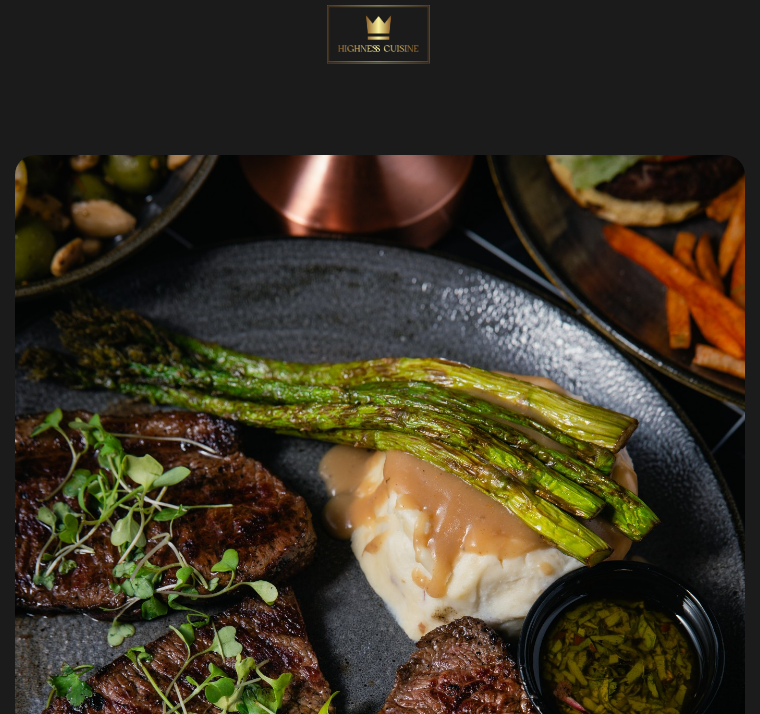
void draw(SkCanvas* canvas) {
    SkPaint paint;
    paint.setAntiAlias(true);
    auto paste = [&](const char* path, float x, float y, float w, float h) {
        auto image = SkImages::DeferredFromEncodedData(SkData::MakeFromFileName(path));
        canvas->drawImageRect(image, SkRect::MakeXYWH(x, y, w, h), SkSamplingOptions());
    };
    canvas->clear(SkColorSetRGB(27, 27, 27));
    paste("pic1.png", 327, 5, 103, 59);
    paste("pic2.png", 15, 155, 730, 559);
}
